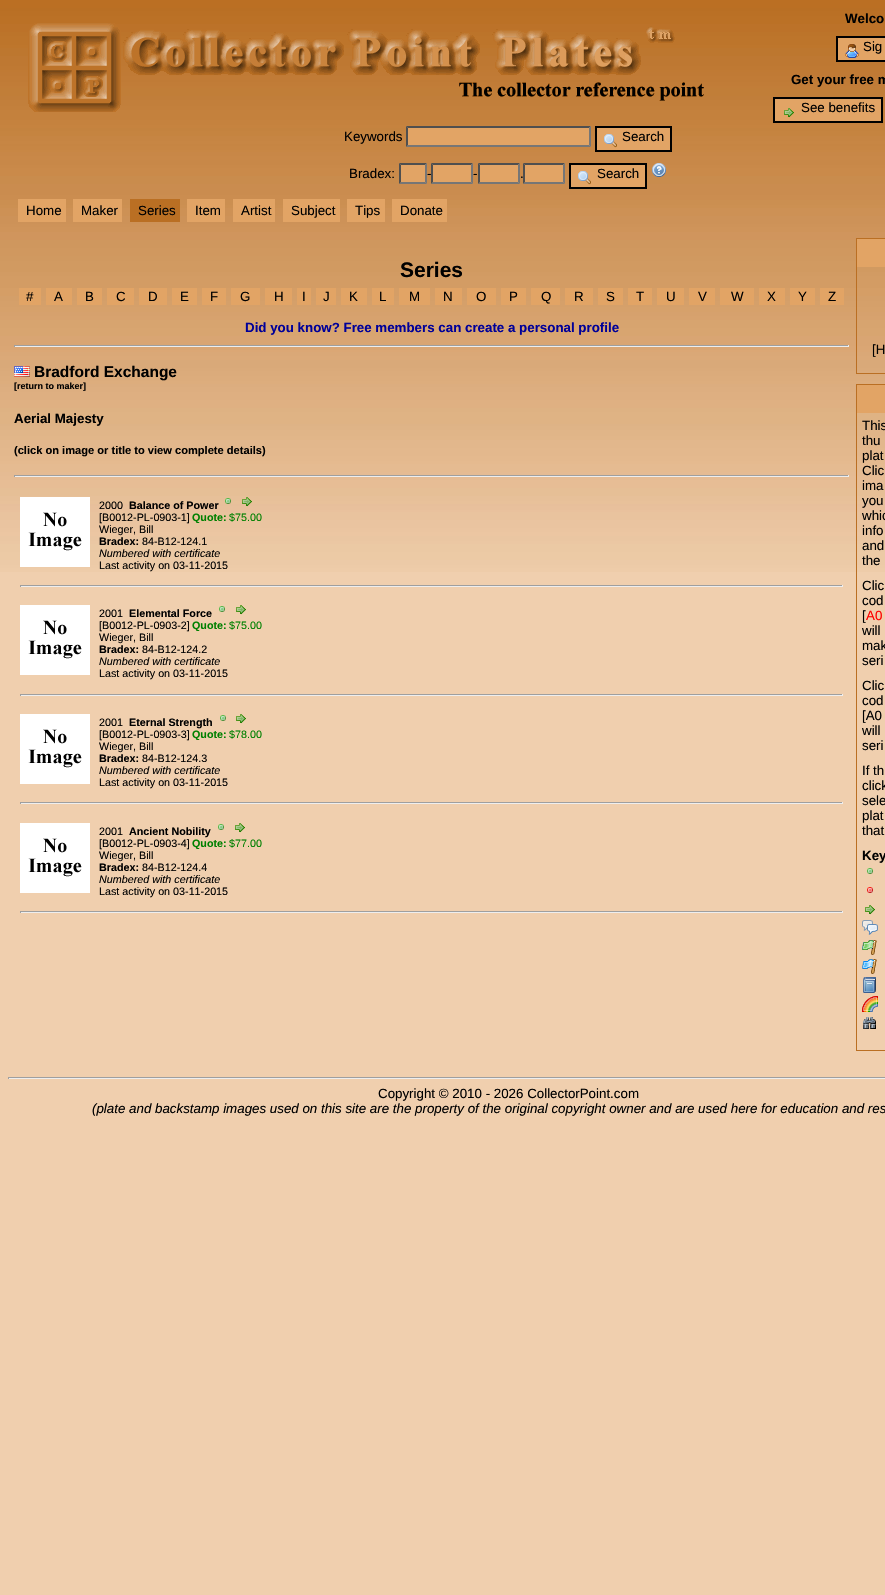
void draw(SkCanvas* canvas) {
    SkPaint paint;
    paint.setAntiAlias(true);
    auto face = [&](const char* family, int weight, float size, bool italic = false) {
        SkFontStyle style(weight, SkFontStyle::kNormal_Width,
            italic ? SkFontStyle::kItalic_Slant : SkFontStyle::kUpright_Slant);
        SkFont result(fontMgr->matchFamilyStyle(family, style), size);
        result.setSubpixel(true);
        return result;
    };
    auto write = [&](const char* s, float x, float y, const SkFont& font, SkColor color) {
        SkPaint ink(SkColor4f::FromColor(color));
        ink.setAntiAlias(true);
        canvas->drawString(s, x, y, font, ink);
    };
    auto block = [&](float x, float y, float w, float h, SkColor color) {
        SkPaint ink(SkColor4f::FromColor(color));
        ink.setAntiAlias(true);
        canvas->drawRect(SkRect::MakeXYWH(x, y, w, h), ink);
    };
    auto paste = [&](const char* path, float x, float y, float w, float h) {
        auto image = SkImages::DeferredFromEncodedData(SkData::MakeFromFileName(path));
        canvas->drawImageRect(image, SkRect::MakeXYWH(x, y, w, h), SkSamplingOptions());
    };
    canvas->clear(SkColorSetRGB(240, 207, 174));
    paste("pic1.png", 0, 0, 885, 572);
    paste("pic2.png", 28, 23, 676, 89);
    auto kFont1 = face("Liberation Sans", 700, 13.33f);
    write("Welco", 845, 23, kFont1, SK_ColorBLACK);
    paint.setColor(SkColorSetRGB(226, 164, 101));
    canvas->drawRect(SkRect::MakeXYWH(837, 37, 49, 24), paint);
    paint.setStyle(SkPaint::kStroke_Style);
    paint.setStrokeWidth(2);
    paint.setColor(SK_ColorBLACK);
    canvas->drawRect(SkRect::MakeXYWH(837, 37, 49, 24), paint);
    paste("pic3.png", 845, 44, 14, 14);
    auto kFont2 = face("Liberation Sans", 400, 13.33f);
    write("Sig", 863, 51, kFont2, SK_ColorBLACK);
    write("Get your free m", 791, 84, kFont1, SK_ColorBLACK);
    paint.setStyle(SkPaint::kFill_Style);
    paint.setColor(SkColorSetRGB(226, 164, 101));
    canvas->drawRect(SkRect::MakeXYWH(774, 98, 108, 24), paint);
    paint.setStyle(SkPaint::kStroke_Style);
    paint.setColor(SK_ColorBLACK);
    canvas->drawRect(SkRect::MakeXYWH(774, 98, 108, 24), paint);
    paste("pic4.png", 784, 108, 10, 10);
    write("See benefits", 801, 112, kFont2, SK_ColorBLACK);
    write("Keywords", 344, 141, kFont2, SK_ColorBLACK);
    block(406, 126, 185, 21, SkColorSetRGB(226, 164, 101));
    paint.setStyle(SkPaint::kFill_Style);
    paint.setColor(SkColorSetRGB(79, 79, 79));
    canvas->drawPath(SkPathBuilder().moveTo(406, 126).lineTo(591, 126).lineTo(589, 128).lineTo(408, 128).close().detach(), paint);
    paint.setColor(SkColorSetRGB(118, 118, 118));
    canvas->drawPath(SkPathBuilder().moveTo(591, 126).lineTo(591, 147).lineTo(589, 145).lineTo(589, 128).close().detach(), paint);
    canvas->drawPath(SkPathBuilder().moveTo(591, 147).lineTo(406, 147).lineTo(408, 145).lineTo(589, 145).close().detach(), paint);
    paint.setColor(SkColorSetRGB(79, 79, 79));
    canvas->drawPath(SkPathBuilder().moveTo(406, 147).lineTo(406, 126).lineTo(408, 128).lineTo(408, 145).close().detach(), paint);
    paint.setColor(SkColorSetRGB(226, 164, 101));
    canvas->drawRect(SkRect::MakeXYWH(596, 127, 75, 24), paint);
    paint.setStyle(SkPaint::kStroke_Style);
    paint.setColor(SK_ColorBLACK);
    canvas->drawRect(SkRect::MakeXYWH(596, 127, 75, 24), paint);
    paste("pic5.png", 604, 134, 13, 14);
    write("Search", 622, 141, kFont2, SK_ColorBLACK);
    write("Bradex:", 349, 178, kFont2, SK_ColorBLACK);
    block(399, 163, 28, 21, SkColorSetRGB(226, 164, 101));
    paint.setStyle(SkPaint::kFill_Style);
    paint.setColor(SkColorSetRGB(79, 79, 79));
    canvas->drawPath(SkPathBuilder().moveTo(399, 163).lineTo(427, 163).lineTo(425, 165).lineTo(401, 165).close().detach(), paint);
    paint.setColor(SkColorSetRGB(118, 118, 118));
    canvas->drawPath(SkPathBuilder().moveTo(427, 163).lineTo(427, 184).lineTo(425, 182).lineTo(425, 165).close().detach(), paint);
    canvas->drawPath(SkPathBuilder().moveTo(427, 184).lineTo(399, 184).lineTo(401, 182).lineTo(425, 182).close().detach(), paint);
    paint.setColor(SkColorSetRGB(79, 79, 79));
    canvas->drawPath(SkPathBuilder().moveTo(399, 184).lineTo(399, 163).lineTo(401, 165).lineTo(401, 182).close().detach(), paint);
    write("-", 427, 178, kFont2, SK_ColorBLACK);
    block(431, 163, 42, 21, SkColorSetRGB(226, 164, 101));
    canvas->drawPath(SkPathBuilder().moveTo(431, 163).lineTo(473, 163).lineTo(471, 165).lineTo(433, 165).close().detach(), paint);
    paint.setColor(SkColorSetRGB(118, 118, 118));
    canvas->drawPath(SkPathBuilder().moveTo(473, 163).lineTo(473, 184).lineTo(471, 182).lineTo(471, 165).close().detach(), paint);
    canvas->drawPath(SkPathBuilder().moveTo(473, 184).lineTo(431, 184).lineTo(433, 182).lineTo(471, 182).close().detach(), paint);
    paint.setColor(SkColorSetRGB(79, 79, 79));
    canvas->drawPath(SkPathBuilder().moveTo(431, 184).lineTo(431, 163).lineTo(433, 165).lineTo(433, 182).close().detach(), paint);
    write("-", 473, 178, kFont2, SK_ColorBLACK);
    block(478, 163, 42, 21, SkColorSetRGB(226, 164, 101));
    canvas->drawPath(SkPathBuilder().moveTo(478, 163).lineTo(520, 163).lineTo(518, 165).lineTo(480, 165).close().detach(), paint);
    paint.setColor(SkColorSetRGB(118, 118, 118));
    canvas->drawPath(SkPathBuilder().moveTo(520, 163).lineTo(520, 184).lineTo(518, 182).lineTo(518, 165).close().detach(), paint);
    canvas->drawPath(SkPathBuilder().moveTo(520, 184).lineTo(478, 184).lineTo(480, 182).lineTo(518, 182).close().detach(), paint);
    paint.setColor(SkColorSetRGB(79, 79, 79));
    canvas->drawPath(SkPathBuilder().moveTo(478, 184).lineTo(478, 163).lineTo(480, 165).lineTo(480, 182).close().detach(), paint);
    block(523, 163, 42, 21, SkColorSetRGB(226, 164, 101));
    canvas->drawPath(SkPathBuilder().moveTo(523, 163).lineTo(565, 163).lineTo(563, 165).lineTo(525, 165).close().detach(), paint);
    paint.setColor(SkColorSetRGB(118, 118, 118));
    canvas->drawPath(SkPathBuilder().moveTo(565, 163).lineTo(565, 184).lineTo(563, 182).lineTo(563, 165).close().detach(), paint);
    canvas->drawPath(SkPathBuilder().moveTo(565, 184).lineTo(523, 184).lineTo(525, 182).lineTo(563, 182).close().detach(), paint);
    paint.setColor(SkColorSetRGB(79, 79, 79));
    canvas->drawPath(SkPathBuilder().moveTo(523, 184).lineTo(523, 163).lineTo(525, 165).lineTo(525, 182).close().detach(), paint);
    paint.setColor(SkColorSetRGB(226, 164, 101));
    canvas->drawRect(SkRect::MakeXYWH(570, 164, 76, 24), paint);
    paint.setStyle(SkPaint::kStroke_Style);
    paint.setColor(SK_ColorBLACK);
    canvas->drawRect(SkRect::MakeXYWH(570, 164, 76, 24), paint);
    paste("pic5.png", 578, 171, 13, 14);
    write("Search", 597, 178, kFont2, SK_ColorBLACK);
    paste("pic6.png", 652, 163, 14, 14);
    write(".", 520, 178, kFont2, SK_ColorBLACK);
    block(18, 199, 48, 23, SkColorSetRGB(226, 164, 101));
    write("Home", 26, 215, kFont2, SK_ColorBLACK);
    block(73, 199, 49, 23, SkColorSetRGB(226, 164, 101));
    write("Maker", 81, 215, kFont2, SK_ColorBLACK);
    block(130, 199, 50, 23, SkColorSetRGB(186, 111, 35));
    write("Series", 138, 215, kFont2, SK_ColorBLACK);
    block(187, 199, 38, 23, SkColorSetRGB(226, 164, 101));
    write("Item", 195, 215, kFont2, SK_ColorBLACK);
    block(233, 199, 42, 23, SkColorSetRGB(226, 164, 101));
    write("Artist", 241, 215, kFont2, SK_ColorBLACK);
    block(283, 199, 57, 23, SkColorSetRGB(226, 164, 101));
    write("Subject", 291, 215, kFont2, SK_ColorBLACK);
    block(347, 199, 38, 23, SkColorSetRGB(226, 164, 101));
    write("Tips", 355, 215, kFont2, SK_ColorBLACK);
    block(392, 199, 55, 23, SkColorSetRGB(226, 164, 101));
    write("Donate", 400, 215, kFont2, SK_ColorBLACK);
    auto kFont3 = face("Liberation Sans", 700, 21);
    write("Series", 400, 277, kFont3, SK_ColorBLACK);
    block(19, 288, 22, 17, SkColorSetRGB(226, 164, 101));
    write("#", 26, 301, kFont2, SK_ColorBLACK);
    block(46, 288, 26, 17, SkColorSetRGB(226, 164, 101));
    write("A", 54, 301, kFont2, SK_ColorBLACK);
    block(77, 288, 25, 17, SkColorSetRGB(226, 164, 101));
    write("B", 85, 301, kFont2, SK_ColorBLACK);
    block(107, 288, 27, 17, SkColorSetRGB(226, 164, 101));
    write("C", 116, 301, kFont2, SK_ColorBLACK);
    block(139, 288, 28, 17, SkColorSetRGB(226, 164, 101));
    write("D", 148, 301, kFont2, SK_ColorBLACK);
    block(172, 288, 25, 17, SkColorSetRGB(226, 164, 101));
    write("E", 180, 301, kFont2, SK_ColorBLACK);
    block(202, 288, 24, 17, SkColorSetRGB(226, 164, 101));
    write("F", 210, 301, kFont2, SK_ColorBLACK);
    block(231, 288, 29, 17, SkColorSetRGB(226, 164, 101));
    write("G", 240, 301, kFont2, SK_ColorBLACK);
    block(265, 288, 27, 17, SkColorSetRGB(226, 164, 101));
    write("H", 274, 301, kFont2, SK_ColorBLACK);
    block(297, 288, 14, 17, SkColorSetRGB(226, 164, 101));
    write("I", 302, 301, kFont2, SK_ColorBLACK);
    block(316, 288, 20, 17, SkColorSetRGB(226, 164, 101));
    write("J", 323, 301, kFont2, SK_ColorBLACK);
    block(341, 288, 26, 17, SkColorSetRGB(226, 164, 101));
    write("K", 349, 301, kFont2, SK_ColorBLACK);
    block(372, 288, 22, 17, SkColorSetRGB(226, 164, 101));
    write("L", 379, 301, kFont2, SK_ColorBLACK);
    block(399, 288, 31, 17, SkColorSetRGB(226, 164, 101));
    write("M", 409, 301, kFont2, SK_ColorBLACK);
    block(435, 288, 27, 17, SkColorSetRGB(226, 164, 101));
    write("N", 443, 301, kFont2, SK_ColorBLACK);
    block(467, 288, 29, 17, SkColorSetRGB(226, 164, 101));
    write("O", 476, 301, kFont2, SK_ColorBLACK);
    block(501, 288, 25, 17, SkColorSetRGB(226, 164, 101));
    write("P", 509, 301, kFont2, SK_ColorBLACK);
    block(531, 288, 29, 17, SkColorSetRGB(226, 164, 101));
    write("Q", 541, 301, kFont2, SK_ColorBLACK);
    block(565, 288, 28, 17, SkColorSetRGB(226, 164, 101));
    write("R", 574, 301, kFont2, SK_ColorBLACK);
    block(598, 288, 25, 17, SkColorSetRGB(226, 164, 101));
    write("S", 606, 301, kFont2, SK_ColorBLACK);
    block(628, 288, 24, 17, SkColorSetRGB(226, 164, 101));
    write("T", 636, 301, kFont2, SK_ColorBLACK);
    block(657, 288, 27, 17, SkColorSetRGB(226, 164, 101));
    write("U", 666, 301, kFont2, SK_ColorBLACK);
    block(689, 288, 26, 17, SkColorSetRGB(226, 164, 101));
    write("V", 698, 301, kFont2, SK_ColorBLACK);
    block(720, 288, 34, 17, SkColorSetRGB(226, 164, 101));
    write("W", 731, 301, kFont2, SK_ColorBLACK);
    block(759, 288, 26, 17, SkColorSetRGB(226, 164, 101));
    write("X", 767, 301, kFont2, SK_ColorBLACK);
    block(790, 288, 25, 17, SkColorSetRGB(226, 164, 101));
    write("Y", 798, 301, kFont2, SK_ColorBLACK);
    block(820, 288, 24, 17, SkColorSetRGB(226, 164, 101));
    write("Z", 828, 301, kFont2, SK_ColorBLACK);
    write("Did you know? Free members can create a personal profile", 245, 332, kFont1, SkColorSetRGB(0, 0, 153));
    block(14, 345, 835, 1, SkColorSetRGB(159, 159, 159));
    block(848, 345, 1, 2, SkColorSetRGB(238, 238, 238));
    block(14, 346, 835, 1, SkColorSetRGB(238, 238, 238));
    block(14, 345, 1, 2, SkColorSetRGB(159, 159, 159));
    paste("pic7.png", 14, 366, 16, 11);
    auto kFont4 = face("Liberation Sans", 700, 15.5f);
    write("Bradford Exchange", 34, 377, kFont4, SK_ColorBLACK);
    auto kFont5 = face("Liberation Sans", 700, 9);
    write("[return to maker]", 14, 389, kFont5, SK_ColorBLACK);
    write("Aerial Majesty", 14, 423, kFont1, SK_ColorBLACK);
    auto kFont6 = face("Liberation Sans", 700, 11.1f);
    write("(click on image or title to view complete details)", 14, 454, kFont6, SK_ColorBLACK);
    block(14, 475, 835, 1, SkColorSetRGB(159, 159, 159));
    block(848, 475, 1, 2, SkColorSetRGB(238, 238, 238));
    block(14, 476, 835, 1, SkColorSetRGB(238, 238, 238));
    block(14, 475, 1, 2, SkColorSetRGB(159, 159, 159));
    paste("pic8.png", 20, 497, 70, 70);
    auto kFont7 = face("Liberation Sans", 400, 10.75f);
    write("2000", 99, 509, kFont7, SK_ColorBLACK);
    auto kFont8 = face("Liberation Sans", 700, 10.75f);
    write("Balance of Power", 129, 509, kFont8, SK_ColorBLACK);
    paste("pic9.png", 225, 498, 6, 6);
    paste("pic10.png", 242, 497, 10, 10);
    write("[B0012-PL-0903-1]", 99, 521, kFont7, SK_ColorBLACK);
    write("Quote:", 192, 521, kFont8, SkColorSetRGB(0, 128, 0));
    write("$75.00", 229, 521, kFont7, SkColorSetRGB(0, 128, 0));
    write("Wieger, Bill", 99, 533, kFont7, SK_ColorBLACK);
    write("Bradex:", 99, 545, kFont8, SK_ColorBLACK);
    write("84-B12-124.1", 142, 545, kFont7, SK_ColorBLACK);
    auto kFont9 = face("Liberation Sans", 400, 10.75f, true);
    write("Numbered with certificate", 99, 557, kFont9, SK_ColorBLACK);
    write("Last activity on 03-11-2015", 99, 569, kFont7, SK_ColorBLACK);
    block(20, 585, 823, 1, SkColorSetRGB(159, 159, 159));
    block(842, 585, 1, 2, SkColorSetRGB(238, 238, 238));
    block(20, 586, 823, 1, SkColorSetRGB(238, 238, 238));
    block(20, 585, 1, 2, SkColorSetRGB(159, 159, 159));
    paste("pic8.png", 20, 605, 70, 70);
    write("2001", 99, 617, kFont7, SK_ColorBLACK);
    write("Elemental Force", 129, 617, kFont8, SK_ColorBLACK);
    paste("pic11.png", 219, 606, 6, 6);
    paste("pic12.png", 236, 605, 10, 10);
    write("[B0012-PL-0903-2]", 99, 629, kFont7, SK_ColorBLACK);
    write("Quote:", 192, 629, kFont8, SkColorSetRGB(0, 128, 0));
    write("$75.00", 229, 629, kFont7, SkColorSetRGB(0, 128, 0));
    write("Wieger, Bill", 99, 641, kFont7, SK_ColorBLACK);
    write("Bradex:", 99, 653, kFont8, SK_ColorBLACK);
    write("84-B12-124.2", 142, 653, kFont7, SK_ColorBLACK);
    write("Numbered with certificate", 99, 665, kFont9, SK_ColorBLACK);
    write("Last activity on 03-11-2015", 99, 677, kFont7, SK_ColorBLACK);
    block(20, 694, 823, 1, SkColorSetRGB(159, 159, 159));
    block(842, 694, 1, 2, SkColorSetRGB(238, 238, 238));
    block(20, 695, 823, 1, SkColorSetRGB(238, 238, 238));
    block(20, 694, 1, 2, SkColorSetRGB(159, 159, 159));
    paste("pic8.png", 20, 714, 70, 70);
    write("2001", 99, 726, kFont7, SK_ColorBLACK);
    write("Eternal Strength", 129, 726, kFont8, SK_ColorBLACK);
    paste("pic11.png", 220, 715, 6, 6);
    paste("pic12.png", 236, 714, 10, 10);
    write("[B0012-PL-0903-3]", 99, 738, kFont7, SK_ColorBLACK);
    write("Quote:", 192, 738, kFont8, SkColorSetRGB(0, 128, 0));
    write("$78.00", 229, 738, kFont7, SkColorSetRGB(0, 128, 0));
    write("Wieger, Bill", 99, 750, kFont7, SK_ColorBLACK);
    write("Bradex:", 99, 762, kFont8, SK_ColorBLACK);
    write("84-B12-124.3", 142, 762, kFont7, SK_ColorBLACK);
    write("Numbered with certificate", 99, 774, kFont9, SK_ColorBLACK);
    write("Last activity on 03-11-2015", 99, 786, kFont7, SK_ColorBLACK);
    block(20, 802, 823, 1, SkColorSetRGB(159, 159, 159));
    block(842, 802, 1, 2, SkColorSetRGB(238, 238, 238));
    block(20, 803, 823, 1, SkColorSetRGB(238, 238, 238));
    block(20, 802, 1, 2, SkColorSetRGB(159, 159, 159));
    paste("pic8.png", 20, 823, 70, 70);
    write("2001", 99, 835, kFont7, SK_ColorBLACK);
    write("Ancient Nobility", 129, 835, kFont8, SK_ColorBLACK);
    paste("pic11.png", 218, 824, 6, 6);
    paste("pic12.png", 235, 823, 10, 10);
    write("[B0012-PL-0903-4]", 99, 847, kFont7, SK_ColorBLACK);
    write("Quote:", 192, 847, kFont8, SkColorSetRGB(0, 128, 0));
    write("$77.00", 229, 847, kFont7, SkColorSetRGB(0, 128, 0));
    write("Wieger, Bill", 99, 859, kFont7, SK_ColorBLACK);
    write("Bradex:", 99, 871, kFont8, SK_ColorBLACK);
    write("84-B12-124.4", 142, 871, kFont7, SK_ColorBLACK);
    write("Numbered with certificate", 99, 883, kFont9, SK_ColorBLACK);
    write("Last activity on 03-11-2015", 99, 895, kFont7, SK_ColorBLACK);
    block(20, 911, 823, 1, SkColorSetRGB(159, 159, 159));
    block(842, 911, 1, 2, SkColorSetRGB(238, 238, 238));
    block(20, 912, 823, 1, SkColorSetRGB(238, 238, 238));
    block(20, 911, 1, 2, SkColorSetRGB(159, 159, 159));
    block(857, 239, 28, 28, SkColorSetRGB(226, 164, 101));
    block(856, 238, 29, 1, SkColorSetRGB(186, 111, 35));
    block(856, 238, 1, 124, SkColorSetRGB(186, 111, 35));
    write("[H", 872, 354, kFont2, SK_ColorBLACK);
    block(856, 373, 29, 1, SkColorSetRGB(186, 111, 35));
    block(856, 362, 1, 12, SkColorSetRGB(186, 111, 35));
    block(857, 385, 28, 28, SkColorSetRGB(226, 164, 101));
    block(856, 384, 29, 1, SkColorSetRGB(186, 111, 35));
    block(856, 384, 1, 655, SkColorSetRGB(186, 111, 35));
    write("This", 862, 430, kFont2, SK_ColorBLACK);
    write("thu", 862, 445, kFont2, SK_ColorBLACK);
    write("plat", 862, 460, kFont2, SK_ColorBLACK);
    write("Clic", 862, 475, kFont2, SK_ColorBLACK);
    write("ima", 862, 490, kFont2, SK_ColorBLACK);
    write("you", 862, 505, kFont2, SK_ColorBLACK);
    write("whic", 862, 520, kFont2, SK_ColorBLACK);
    write("info", 862, 535, kFont2, SK_ColorBLACK);
    write("and", 862, 550, kFont2, SK_ColorBLACK);
    write("the", 862, 565, kFont2, SK_ColorBLACK);
    write("Clic", 862, 590, kFont2, SK_ColorBLACK);
    write("cod", 862, 605, kFont2, SK_ColorBLACK);
    write("[", 862, 620, kFont2, SK_ColorBLACK);
    write("A0", 866, 620, kFont2, SkColorSetRGB(255, 0, 0));
    write("will", 862, 635, kFont2, SK_ColorBLACK);
    write("mak", 862, 650, kFont2, SK_ColorBLACK);
    write("seri", 862, 665, kFont2, SK_ColorBLACK);
    write("Clic", 862, 690, kFont2, SK_ColorBLACK);
    write("cod", 862, 705, kFont2, SK_ColorBLACK);
    write("[A0", 862, 720, kFont2, SK_ColorBLACK);
    write("will", 862, 735, kFont2, SK_ColorBLACK);
    write("seri", 862, 750, kFont2, SK_ColorBLACK);
    write("If th", 862, 775, kFont2, SK_ColorBLACK);
    write("click", 862, 790, kFont2, SK_ColorBLACK);
    write("sele", 862, 805, kFont2, SK_ColorBLACK);
    write("plat", 862, 820, kFont2, SK_ColorBLACK);
    write("that", 862, 835, kFont2, SK_ColorBLACK);
    write("Key", 862, 860, kFont1, SK_ColorBLACK);
    paste("pic11.png", 867, 868, 6, 6);
    paste("pic13.png", 867, 887, 6, 6);
    paste("pic12.png", 865, 905, 10, 10);
    paste("pic14.png", 862, 920, 16, 15);
    paste("pic15.png", 862, 940, 15, 15);
    paste("pic16.png", 862, 959, 15, 15);
    paste("pic17.png", 863, 977, 13, 16);
    paste("pic18.png", 862, 996, 16, 16);
    paste("pic19.png", 863, 1017, 13, 12);
    block(856, 1050, 29, 1, SkColorSetRGB(186, 111, 35));
    block(856, 1039, 1, 12, SkColorSetRGB(186, 111, 35));
    block(8, 1077, 877, 1, SkColorSetRGB(159, 159, 159));
    block(8, 1078, 877, 1, SkColorSetRGB(238, 238, 238));
    block(8, 1077, 1, 2, SkColorSetRGB(159, 159, 159));
    write("Copyright © 2010 - 2026 CollectorPoint.com", 378, 1098, kFont2, SK_ColorBLACK);
    auto kFont10 = face("Liberation Sans", 400, 13.33f, true);
    write("(plate and backstamp images used on this site are the property of the original copyright owner and are used here for education and res", 92, 1113, kFont10, SK_ColorBLACK);
}
